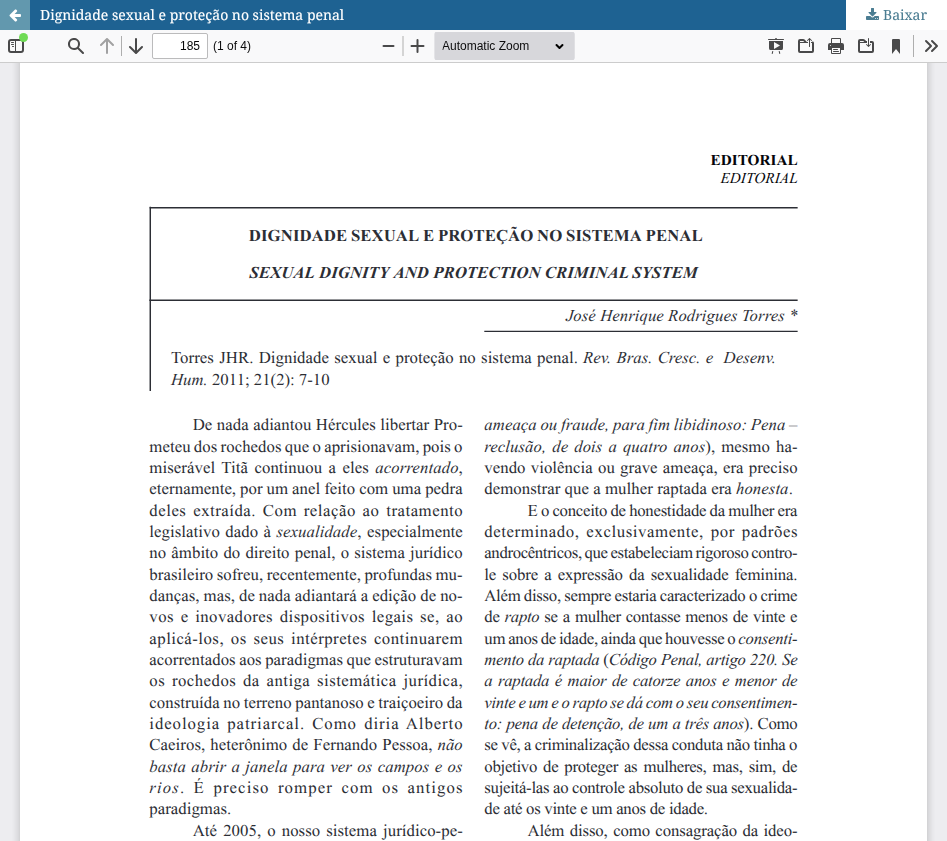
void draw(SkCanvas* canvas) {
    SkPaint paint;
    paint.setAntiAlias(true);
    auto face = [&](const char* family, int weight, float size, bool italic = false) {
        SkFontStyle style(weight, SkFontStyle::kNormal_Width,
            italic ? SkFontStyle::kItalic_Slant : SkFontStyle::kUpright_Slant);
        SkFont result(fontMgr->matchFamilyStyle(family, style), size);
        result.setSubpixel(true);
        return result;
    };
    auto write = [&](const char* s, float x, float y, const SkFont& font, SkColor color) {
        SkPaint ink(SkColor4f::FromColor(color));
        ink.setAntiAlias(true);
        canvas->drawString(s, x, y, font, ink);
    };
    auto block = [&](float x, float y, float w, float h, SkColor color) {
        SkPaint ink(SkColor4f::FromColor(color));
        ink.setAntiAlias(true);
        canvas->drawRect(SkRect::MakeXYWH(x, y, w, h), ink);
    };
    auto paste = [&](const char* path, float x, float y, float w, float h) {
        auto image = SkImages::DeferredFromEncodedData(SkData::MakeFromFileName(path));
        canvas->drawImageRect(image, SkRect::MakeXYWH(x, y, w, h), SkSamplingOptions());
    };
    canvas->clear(SK_ColorWHITE);
    block(30, 0, 816, 30, SkColorSetRGB(30, 98, 146));
    block(0, 0, 30, 30, SkColorSetRGB(98, 152, 174));
    paste("pic1.png", 9, 9, 12, 13);
    auto kFont1 = face("Noto Serif", 400, 14);
    write("Dignidade sexual e proteção no sistema penal", 40, 20, kFont1, SK_ColorWHITE);
    paste("pic2.png", 866, 8, 13, 12);
    write("Baixar", 883, 20, kFont1, SkColorSetRGB(75, 125, 146));
    paste("pic3.png", 0, 30, 947, 811);
}
